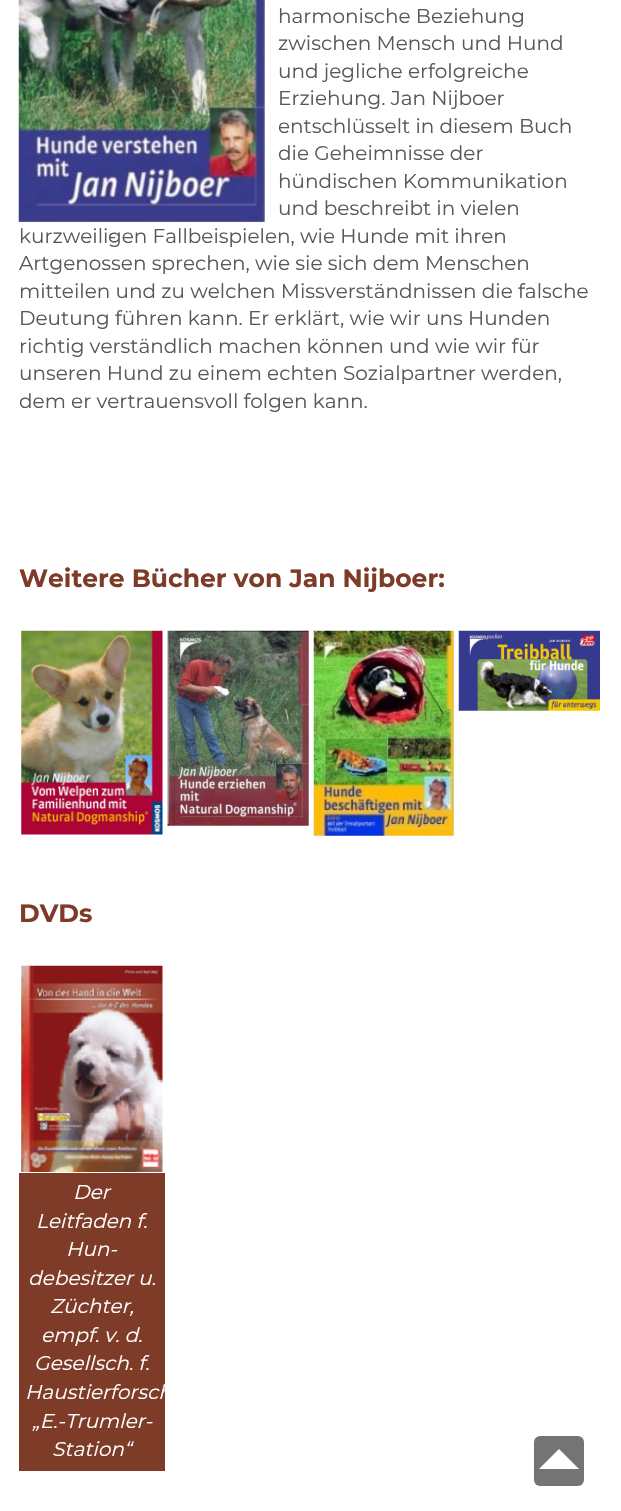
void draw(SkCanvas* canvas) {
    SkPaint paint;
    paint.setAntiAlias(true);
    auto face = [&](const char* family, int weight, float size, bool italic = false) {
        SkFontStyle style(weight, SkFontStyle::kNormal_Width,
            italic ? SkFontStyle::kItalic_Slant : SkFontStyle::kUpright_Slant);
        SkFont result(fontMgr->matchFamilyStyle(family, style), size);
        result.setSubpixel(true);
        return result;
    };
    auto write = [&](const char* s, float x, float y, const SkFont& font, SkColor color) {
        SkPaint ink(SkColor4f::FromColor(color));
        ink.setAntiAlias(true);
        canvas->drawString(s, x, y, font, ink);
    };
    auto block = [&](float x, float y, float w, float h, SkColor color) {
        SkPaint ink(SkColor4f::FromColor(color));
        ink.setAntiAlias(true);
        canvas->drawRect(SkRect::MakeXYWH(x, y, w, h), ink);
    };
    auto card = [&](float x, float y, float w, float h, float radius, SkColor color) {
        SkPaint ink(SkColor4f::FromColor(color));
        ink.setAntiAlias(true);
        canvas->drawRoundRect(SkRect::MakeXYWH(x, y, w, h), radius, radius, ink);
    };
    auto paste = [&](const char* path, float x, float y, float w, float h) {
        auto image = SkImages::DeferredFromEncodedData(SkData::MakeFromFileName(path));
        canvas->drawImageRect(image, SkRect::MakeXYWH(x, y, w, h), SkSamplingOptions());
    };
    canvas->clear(SK_ColorWHITE);
    paste("pic1.png", 18, 0, 247, 222);
    auto kFont1 = face("Montserrat", 400, 20);
    write("harmonische Beziehung", 278, 23, kFont1, SkColorSetRGB(88, 88, 90));
    write("zwischen Mensch und Hund", 278, 50, kFont1, SkColorSetRGB(88, 88, 90));
    write("und jegliche erfolgreiche", 278, 78, kFont1, SkColorSetRGB(88, 88, 90));
    write("Erziehung. Jan Nijboer", 278, 105, kFont1, SkColorSetRGB(88, 88, 90));
    write("entschlüsselt in diesem Buch", 278, 133, kFont1, SkColorSetRGB(88, 88, 90));
    write("die Geheimnisse der", 278, 160, kFont1, SkColorSetRGB(88, 88, 90));
    write("hündischen Kommunikation", 278, 188, kFont1, SkColorSetRGB(88, 88, 90));
    write("und beschreibt in vielen", 278, 215, kFont1, SkColorSetRGB(88, 88, 90));
    write("kurzweili-", 19, 243, kFont1, SkColorSetRGB(88, 88, 90));
    write("gen Fallbeispielen, wie Hunde mit ihren", 108, 243, kFont1, SkColorSetRGB(88, 88, 90));
    write("Artgenossen sprechen, wie sie sich dem Menschen", 19, 270, kFont1, SkColorSetRGB(88, 88, 90));
    write("mitteilen und zu welchen Missverständnissen die falsche", 19, 298, kFont1, SkColorSetRGB(88, 88, 90));
    write("Deutung führen kann. Er erklärt, wie wir uns Hunden", 19, 325, kFont1, SkColorSetRGB(88, 88, 90));
    write("richtig verständlich machen können und wie wir für", 19, 353, kFont1, SkColorSetRGB(88, 88, 90));
    write("unseren Hund zu einem echten Sozialpartner werden,", 19, 380, kFont1, SkColorSetRGB(88, 88, 90));
    write("dem er vertrauensvoll folgen kann.", 19, 408, kFont1, SkColorSetRGB(88, 88, 90));
    auto kFont2 = face("Montserrat", 700, 25);
    write("Weitere Bücher von Jan Nijboer:", 19, 587, kFont2, SkColorSetRGB(126, 59, 40));
    paste("pic2.png", 21, 630, 142, 205);
    paste("pic3.png", 167, 630, 142, 196);
    paste("pic4.png", 313, 630, 141, 206);
    paste("pic5.png", 458, 630, 142, 81);
    write("DVDs", 19, 922, kFont2, SkColorSetRGB(126, 59, 40));
    paste("pic6.png", 21, 965, 142, 207);
    block(19, 1173, 146, 298, SkColorSetRGB(126, 59, 40));
    auto kFont3 = face("Montserrat", 400, 20, true);
    write("Der", 73, 1199, kFont3, SK_ColorWHITE);
    write("Leitfaden f.", 36, 1228, kFont3, SK_ColorWHITE);
    write("Hun-", 66, 1256, kFont3, SK_ColorWHITE);
    write("debesitzer u.", 28, 1285, kFont3, SK_ColorWHITE);
    write("Züchter,", 50, 1313, kFont3, SK_ColorWHITE);
    write("empf. v. d.", 41, 1342, kFont3, SK_ColorWHITE);
    write("Gesellsch. f.", 34, 1370, kFont3, SK_ColorWHITE);
    write("Haustierforsch", 25, 1399, kFont3, SK_ColorWHITE);
    write("„E.-Trumler-", 32, 1428, kFont3, SK_ColorWHITE);
    write("Station“", 52, 1456, kFont3, SK_ColorWHITE);
    card(534, 1436, 50, 50, 6, SkColorSetRGB(116, 116, 116));
    paint.setColor(SK_ColorWHITE);
    canvas->drawPath(SkPathBuilder().moveTo(579, 1469).lineTo(539, 1469).lineTo(559, 1449).close().detach(), paint);
}
